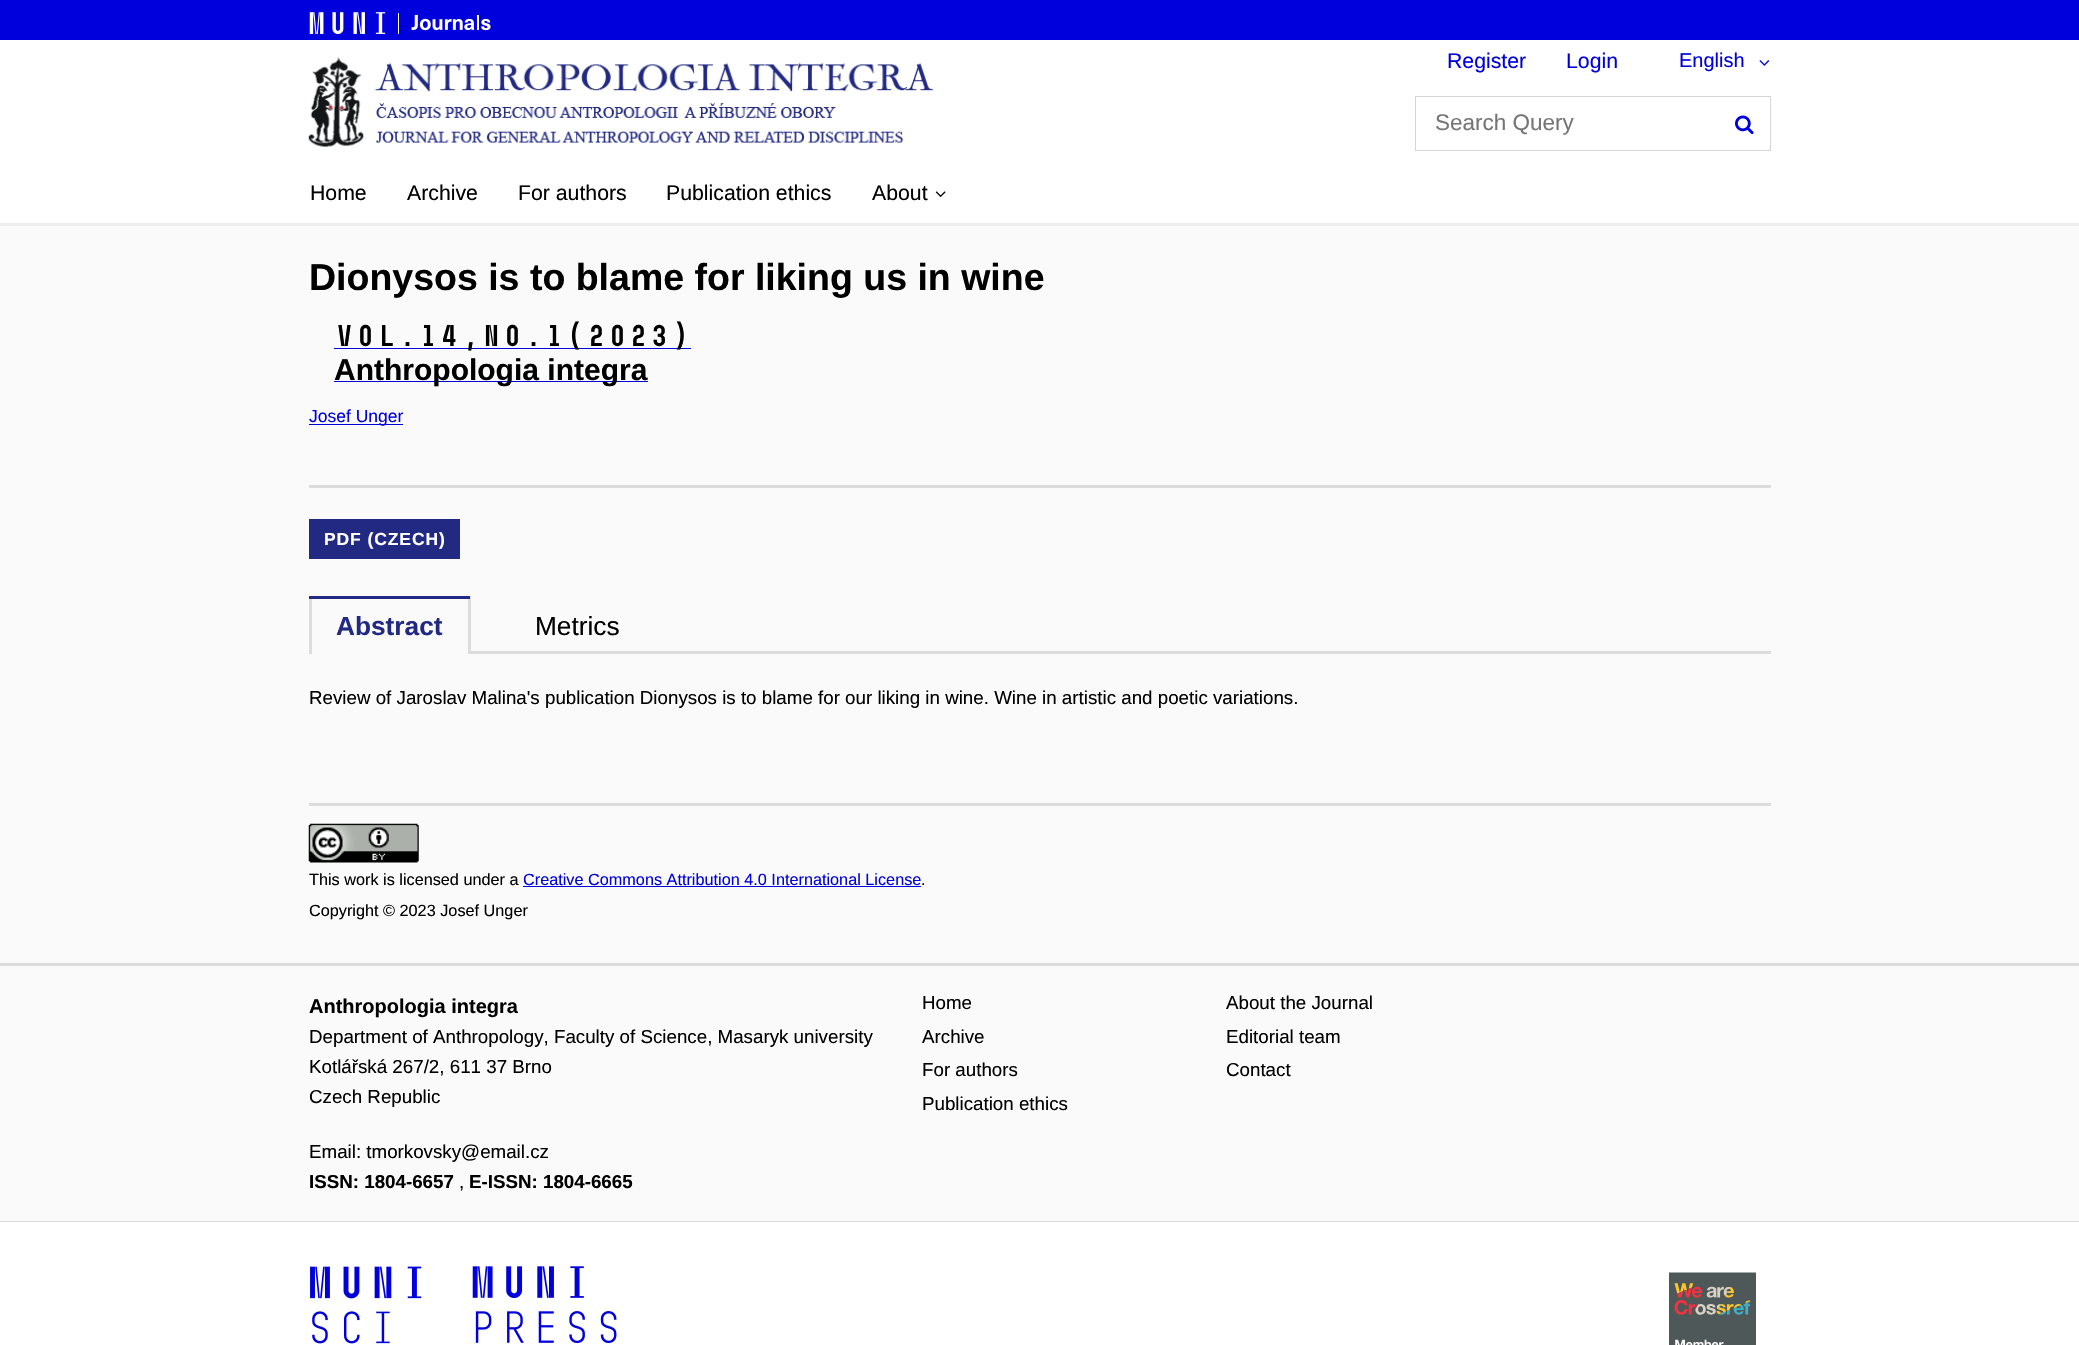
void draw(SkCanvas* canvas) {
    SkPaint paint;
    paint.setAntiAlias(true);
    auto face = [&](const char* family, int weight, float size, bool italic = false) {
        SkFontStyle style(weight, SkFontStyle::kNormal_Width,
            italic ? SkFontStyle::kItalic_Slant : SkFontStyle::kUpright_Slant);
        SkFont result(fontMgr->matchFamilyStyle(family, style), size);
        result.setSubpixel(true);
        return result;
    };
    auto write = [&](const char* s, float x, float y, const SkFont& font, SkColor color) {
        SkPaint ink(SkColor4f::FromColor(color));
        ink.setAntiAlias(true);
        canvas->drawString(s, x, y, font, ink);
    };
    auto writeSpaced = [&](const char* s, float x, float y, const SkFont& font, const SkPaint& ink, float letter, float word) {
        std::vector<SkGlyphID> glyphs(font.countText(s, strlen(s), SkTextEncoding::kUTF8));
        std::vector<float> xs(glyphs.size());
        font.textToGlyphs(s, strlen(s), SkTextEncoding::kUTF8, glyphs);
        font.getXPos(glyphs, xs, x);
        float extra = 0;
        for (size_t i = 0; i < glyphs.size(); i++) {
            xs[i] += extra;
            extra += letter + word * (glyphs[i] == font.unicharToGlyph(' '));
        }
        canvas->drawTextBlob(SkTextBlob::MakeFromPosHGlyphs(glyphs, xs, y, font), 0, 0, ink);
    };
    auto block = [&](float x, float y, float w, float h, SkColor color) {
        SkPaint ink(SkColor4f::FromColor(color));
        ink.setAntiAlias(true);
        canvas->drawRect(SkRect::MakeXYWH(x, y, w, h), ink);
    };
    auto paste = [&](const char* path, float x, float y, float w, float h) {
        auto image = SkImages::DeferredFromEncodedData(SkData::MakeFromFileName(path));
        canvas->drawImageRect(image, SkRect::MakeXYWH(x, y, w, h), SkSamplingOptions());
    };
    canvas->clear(SkColorSetRGB(250, 250, 250));
    block(0, 40, 2079, 183, SK_ColorWHITE);
    block(0, 0, 2079, 40, SkColorSetRGB(0, 0, 220));
    paste("pic1.png", 309, 12, 182, 22);
    paste("pic2.png", 308, 57, 625, 90);
    auto kFont1 = face("Liberation Sans", 400, 21.25f);
    write("Register", 1447, 68, kFont1, SkColorSetRGB(0, 0, 220));
    write("Login", 1566, 68, kFont1, SkColorSetRGB(0, 0, 220));
    auto kFont2 = face("Liberation Sans", 400, 20);
    write("English", 1679, 67, kFont2, SkColorSetRGB(0, 0, 220));
    paste("pic3.png", 1759, 60, 11, 6);
    paint.setStyle(SkPaint::kStroke_Style);
    paint.setStrokeWidth(1);
    paint.setColor(SkColorSetRGB(213, 213, 213));
    canvas->drawRect(SkRect::MakeXYWH(1415.5f, 96.5f, 355, 54), paint);
    auto kFont3 = face("Liberation Sans", 400, 22.5f);
    write("Search Query", 1435, 130, kFont3, SkColorSetRGB(117, 117, 117));
    paste("pic4.png", 1735, 115, 19, 20);
    block(0, 223, 2079, 3, SkColorSetRGB(238, 238, 238));
    write("Home", 310, 200, kFont1, SK_ColorBLACK);
    write("Archive", 407, 200, kFont1, SK_ColorBLACK);
    write("For authors", 518, 200, kFont1, SK_ColorBLACK);
    write("Publication ethics", 666, 200, kFont1, SK_ColorBLACK);
    write("About", 872, 200, kFont1, SK_ColorBLACK);
    paste("pic5.png", 935, 191, 11, 6);
    auto kFont4 = face("Liberation Sans", 700, 37.5f);
    write("Dionysos is to blame for liking us in wine", 309, 290, kFont4, SK_ColorBLACK);
    block(334, 348, 357, 1, SkColorSetRGB(0, 0, 220));
    auto kFont5 = face("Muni", 700, 30);
    write("Vol.14,No.1(2023)", 334, 346, kFont5, SK_ColorBLACK);
    block(334, 381, 314, 1, SkColorSetRGB(0, 0, 220));
    auto kFont6 = face("Liberation Sans", 700, 30);
    write("Anthropologia integra", 334, 380, kFont6, SK_ColorBLACK);
    block(309, 424, 94, 1, SkColorSetRGB(0, 0, 220));
    auto kFont7 = face("Liberation Sans", 400, 17.5f);
    write("Josef Unger", 309, 422, kFont7, SkColorSetRGB(0, 0, 220));
    block(309, 485, 1462, 3, SkColorSetRGB(220, 220, 220));
    block(309, 519, 151, 40, SkColorSetRGB(33, 41, 130));
    auto kFont8 = face("Liberation Sans", 700, 17.5f);
    paint.setStyle(SkPaint::kFill_Style);
    paint.setColor(SK_ColorWHITE);
    writeSpaced("PDF (CZECH)", 324, 545, kFont8, paint, 0.9f, 0);
    block(471, 651, 1300, 3, SkColorSetRGB(220, 220, 220));
    block(468, 596, 3, 58, SkColorSetRGB(220, 220, 220));
    block(309, 596, 3, 58, SkColorSetRGB(220, 220, 220));
    block(309, 596, 161, 3, SkColorSetRGB(33, 41, 130));
    auto kFont9 = face("Liberation Sans", 700, 26.25f);
    write("Abstract", 336, 635, kFont9, SkColorSetRGB(33, 41, 130));
    auto kFont10 = face("Liberation Sans", 400, 26.25f);
    write("Metrics", 535, 635, kFont10, SK_ColorBLACK);
    auto kFont11 = face("Liberation Sans", 400, 18.75f);
    write("Review of Jaroslav Malina's publication Dionysos is to blame for our liking in wine. Wine in artistic and poetic variations.", 309, 704, kFont11, SK_ColorBLACK);
    block(309, 803, 1462, 3, SkColorSetRGB(220, 220, 220));
    paste("pic6.png", 308, 823, 111, 40);
    auto kFont12 = face("Liberation Sans", 400, 16.25f);
    write("This work is licensed under a", 309, 885, kFont12, SK_ColorBLACK);
    write("Creative Commons Attribution 4.0 International License", 523, 885, kFont12, SkColorSetRGB(0, 0, 220));
    block(523, 886, 398, 1, SkColorSetRGB(0, 0, 220));
    write(".", 921, 885, kFont12, SK_ColorBLACK);
    write("Copyright © 2023 Josef Unger", 309, 916, kFont12, SK_ColorBLACK);
    block(0, 963, 2079, 3, SkColorSetRGB(220, 220, 220));
    auto kFont13 = face("Liberation Sans", 700, 20);
    write("Anthropologia integra", 309, 1013, kFont13, SK_ColorBLACK);
    write("Department of Anthropology, Faculty of Science, Masaryk university", 309, 1043, kFont11, SK_ColorBLACK);
    write("Kotlářská 267/2, 611 37 Brno", 309, 1073, kFont11, SK_ColorBLACK);
    write("Czech Republic", 309, 1103, kFont11, SK_ColorBLACK);
    write("Email: tmorkovsky@email.cz", 309, 1158, kFont11, SK_ColorBLACK);
    auto kFont14 = face("Liberation Sans", 700, 18.75f);
    write("ISSN: 1804-6657", 309, 1188, kFont14, SK_ColorBLACK);
    write(",", 459, 1188, kFont11, SK_ColorBLACK);
    write("E-ISSN: 1804-6665", 469, 1188, kFont14, SK_ColorBLACK);
    write("Home", 922, 1009, kFont11, SK_ColorBLACK);
    write("About the Journal", 1226, 1009, kFont11, SK_ColorBLACK);
    write("Archive", 922, 1043, kFont11, SK_ColorBLACK);
    write("Editorial team", 1226, 1043, kFont11, SK_ColorBLACK);
    write("For authors", 922, 1076, kFont11, SK_ColorBLACK);
    write("Contact", 1226, 1076, kFont11, SK_ColorBLACK);
    write("Publication ethics", 922, 1110, kFont11, SK_ColorBLACK);
    block(0, 1222, 2079, 123, SK_ColorWHITE);
    block(0, 1221, 2079, 1, SkColorSetRGB(220, 220, 220));
    paste("pic7.png", 310, 1266, 112, 78);
    paste("pic8.png", 472, 1266, 145, 78);
    paste("pic9.png", 1669, 1272, 87, 73);
}
